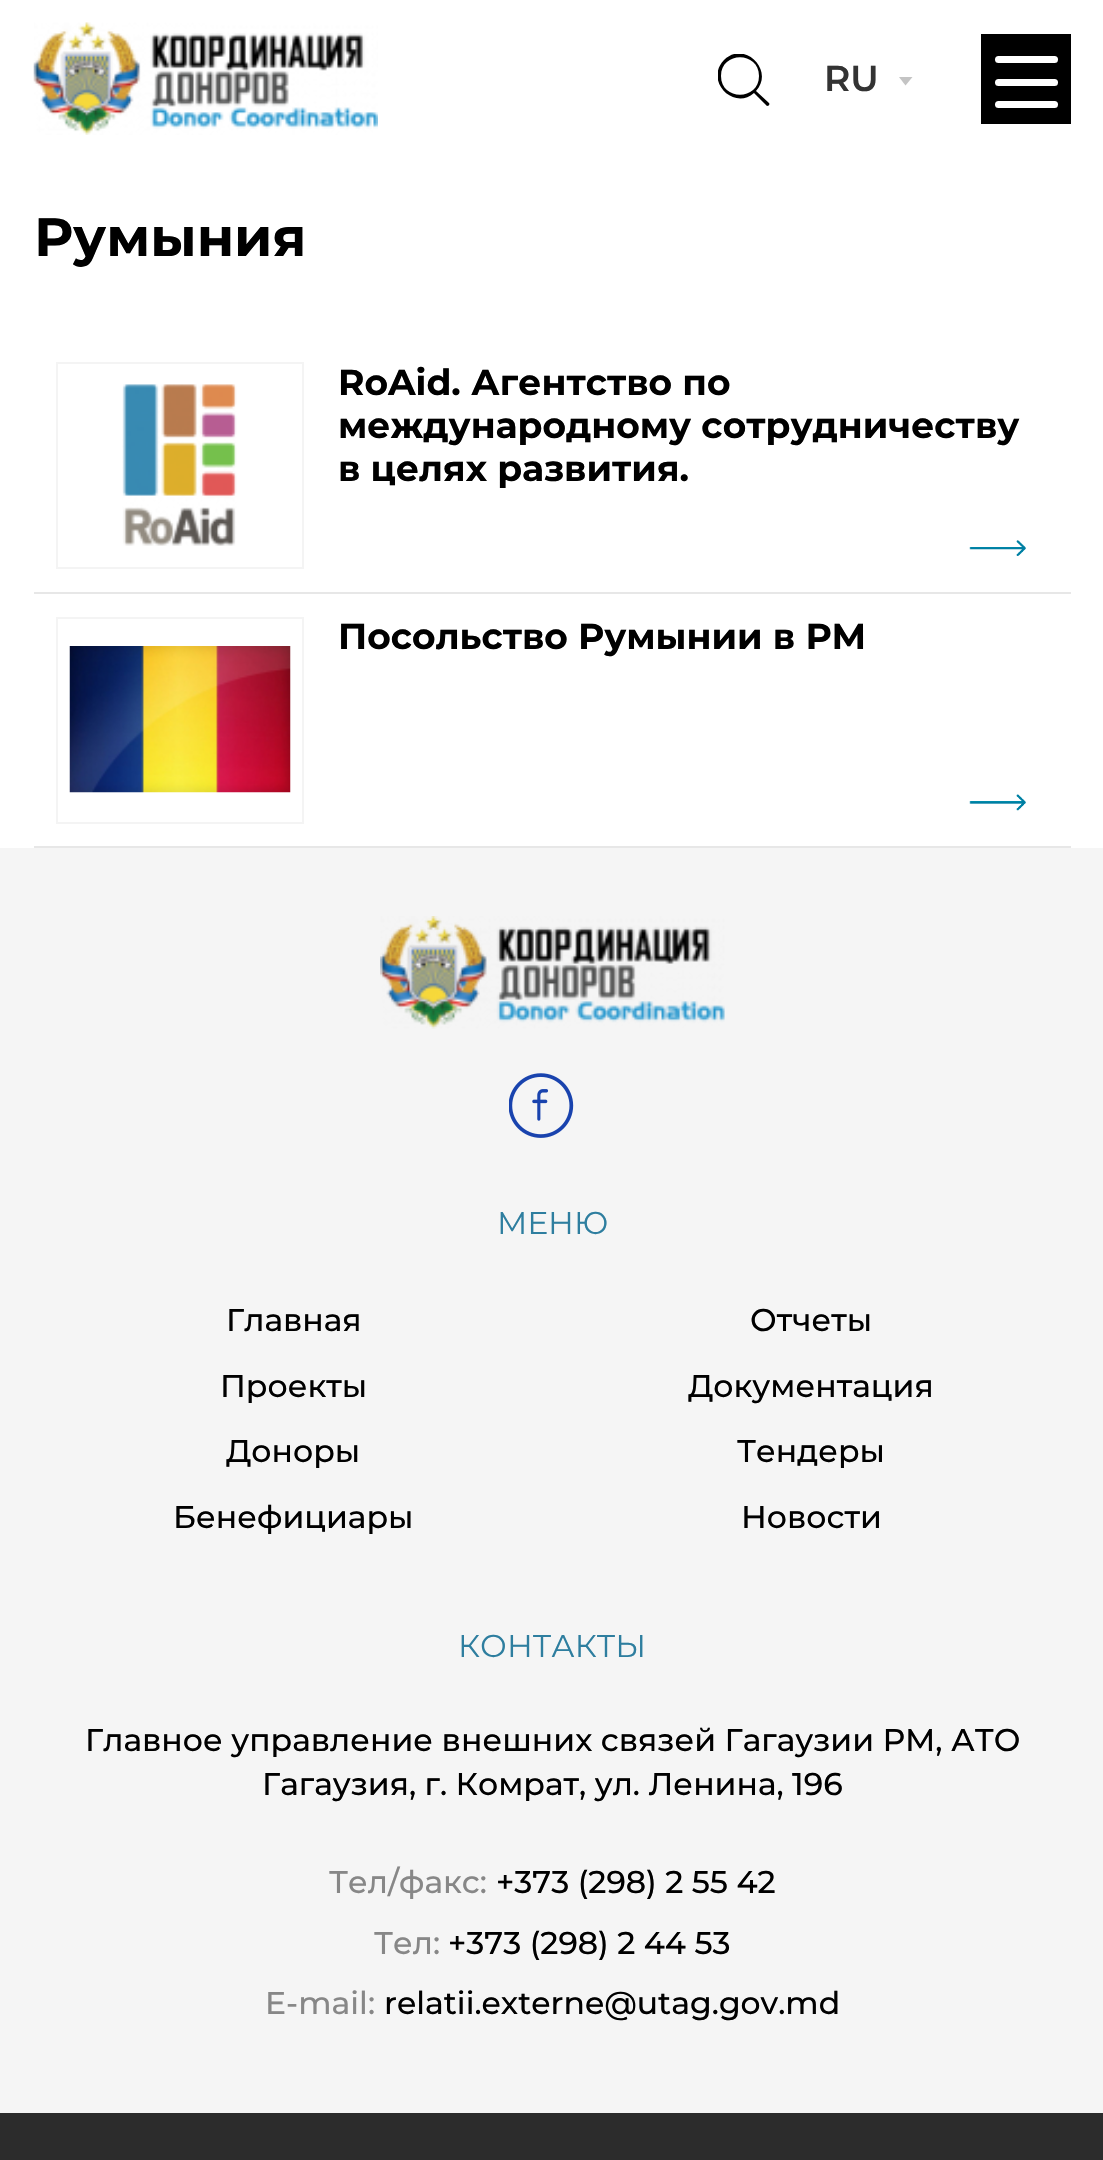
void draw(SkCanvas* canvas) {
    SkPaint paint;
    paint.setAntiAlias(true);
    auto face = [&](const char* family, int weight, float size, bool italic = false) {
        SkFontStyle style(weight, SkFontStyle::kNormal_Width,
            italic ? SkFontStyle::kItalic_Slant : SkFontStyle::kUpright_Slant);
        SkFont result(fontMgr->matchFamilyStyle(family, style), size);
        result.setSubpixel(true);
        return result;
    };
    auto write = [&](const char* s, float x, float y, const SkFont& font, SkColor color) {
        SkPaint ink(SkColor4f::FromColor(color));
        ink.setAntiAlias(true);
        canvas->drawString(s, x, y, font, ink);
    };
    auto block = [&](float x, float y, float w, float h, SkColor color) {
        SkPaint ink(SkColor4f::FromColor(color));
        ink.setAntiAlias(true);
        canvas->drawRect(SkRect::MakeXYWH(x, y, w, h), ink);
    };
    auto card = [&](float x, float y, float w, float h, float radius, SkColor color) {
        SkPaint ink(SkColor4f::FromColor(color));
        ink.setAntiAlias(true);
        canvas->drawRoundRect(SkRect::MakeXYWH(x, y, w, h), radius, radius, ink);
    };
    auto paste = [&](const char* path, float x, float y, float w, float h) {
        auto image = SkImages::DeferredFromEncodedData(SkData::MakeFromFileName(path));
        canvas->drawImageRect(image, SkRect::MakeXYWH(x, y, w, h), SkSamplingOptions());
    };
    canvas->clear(SK_ColorWHITE);
    paste("pic1.png", 33, 22, 345, 113);
    canvas->save();
    canvas->clipRect(SkRect::MakeXYWH(718, 54, 52, 52));
    paint.setColor(SK_ColorBLACK);
    canvas->drawPath(SkPathBuilder().moveTo(769, 103).lineTo(756, 91).cubicTo(775, 70, 744, 40, 724, 60).cubicTo(704, 81, 734, 111, 754, 93).lineTo(767, 106).cubicTo(769, 106, 770, 104, 769, 103).close().moveTo(721, 76).cubicTo(721, 51, 759, 51, 759, 76).cubicTo(759, 101, 721, 101, 721, 76).close().detach(), paint);
    canvas->restore();
    paint.setColor(SkColorSetRGB(196, 196, 196));
    canvas->drawPath(SkPathBuilder().moveTo(905.5f, 85.5f).lineTo(899, 77).lineTo(912.5f, 77).close().detach(), paint);
    auto kFont1 = face("Montserrat", 600, 36);
    write("RU", 824, 91, kFont1, SkColorSetRGB(51, 51, 51));
    block(981, 34, 90, 90, SK_ColorBLACK);
    card(995, 56, 63, 7, 3.5f, SK_ColorWHITE);
    card(995, 79, 63, 7, 3.5f, SK_ColorWHITE);
    card(995, 101, 63, 7, 3.5f, SK_ColorWHITE);
    auto kFont2 = face("Montserrat", 700, 54);
    write("Румыния", 34, 256, kFont2, SK_ColorBLACK);
    block(34, 592, 1037, 2, SkColorSetRGB(231, 231, 231));
    paint.setStyle(SkPaint::kStroke_Style);
    paint.setStrokeWidth(2);
    paint.setColor(SkColorSetRGB(244, 244, 244));
    canvas->drawRect(SkRect::MakeXYWH(57, 363, 246, 205), paint);
    paste("pic2.png", 122, 384, 115, 162);
    auto kFont3 = face("Montserrat", 700, 36);
    write("RoAid. Агентство по", 338, 395, kFont3, SK_ColorBLACK);
    write("международному сотрудничеству", 338, 438, kFont3, SK_ColorBLACK);
    write("в целях развития.", 338, 481, kFont3, SK_ColorBLACK);
    paste("pic3.png", 969, 540, 57, 16);
    block(34, 846, 1037, 2, SkColorSetRGB(231, 231, 231));
    canvas->drawRect(SkRect::MakeXYWH(57, 618, 246, 205), paint);
    paste("pic4.png", 69, 646, 222, 147);
    write("Посольство Румынии в РМ", 338, 649, kFont3, SK_ColorBLACK);
    paste("pic5.png", 969, 794, 57, 17);
    block(0, 848, 1103, 1265, SkColorSetRGB(245, 245, 245));
    paste("pic6.png", 380, 916, 345, 113);
    paste("pic7.png", 509, 1073, 65, 65);
    auto kFont4 = face("Montserrat", 400, 31.5f);
    write("МЕНЮ", 497, 1234, kFont4, SkColorSetRGB(46, 126, 159));
    auto kFont5 = face("Montserrat", 500, 31.5f);
    write("Главная", 226, 1331, kFont5, SK_ColorBLACK);
    write("Отчеты", 750, 1331, kFont5, SK_ColorBLACK);
    write("Проекты", 220, 1397, kFont5, SK_ColorBLACK);
    write("Документация", 688, 1397, kFont5, SK_ColorBLACK);
    write("Доноры", 226, 1462, kFont5, SK_ColorBLACK);
    write("Тендеры", 737, 1462, kFont5, SK_ColorBLACK);
    write("Бенефициары", 173, 1528, kFont5, SK_ColorBLACK);
    write("Новости", 741, 1528, kFont5, SK_ColorBLACK);
    write("КОНТАКТЫ", 458, 1657, kFont4, SkColorSetRGB(46, 126, 159));
    write("Главное управление внешних связей Гагаузии РМ, АТО", 85, 1751, kFont5, SK_ColorBLACK);
    write("Гагаузия, г. Комрат, ул. Ленина, 196", 262, 1795, kFont5, SK_ColorBLACK);
    write("Тел/факс:", 329, 1893, kFont5, SkColorSetRGB(135, 135, 135));
    write("+373 (298) 2 55 42", 496, 1893, kFont5, SK_ColorBLACK);
    write("Тел:", 374, 1954, kFont5, SkColorSetRGB(135, 135, 135));
    write("+373 (298) 2 44 53", 448, 1954, kFont5, SK_ColorBLACK);
    write("E-mail:", 265, 2014, kFont5, SkColorSetRGB(135, 135, 135));
    write("relatii.externe@utag.gov.md", 384, 2014, kFont5, SK_ColorBLACK);
    block(0, 2113, 1103, 47, SkColorSetRGB(44, 44, 44));
}
